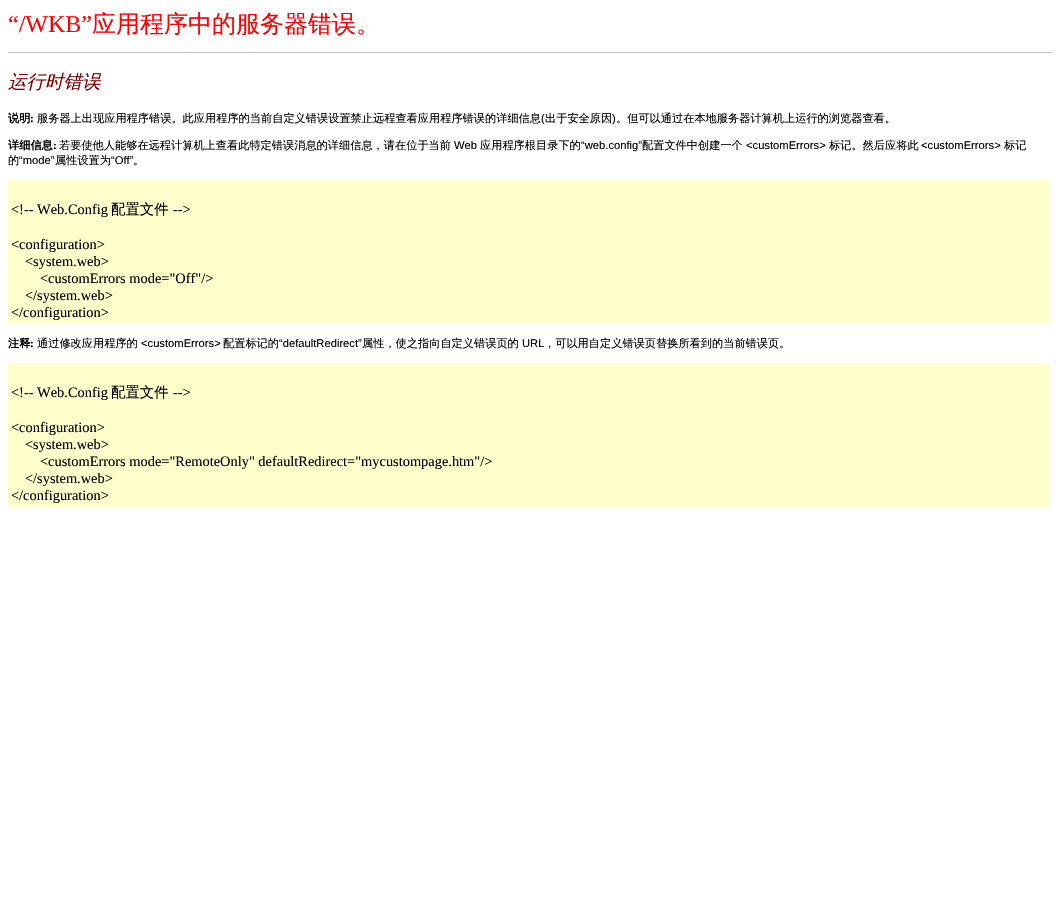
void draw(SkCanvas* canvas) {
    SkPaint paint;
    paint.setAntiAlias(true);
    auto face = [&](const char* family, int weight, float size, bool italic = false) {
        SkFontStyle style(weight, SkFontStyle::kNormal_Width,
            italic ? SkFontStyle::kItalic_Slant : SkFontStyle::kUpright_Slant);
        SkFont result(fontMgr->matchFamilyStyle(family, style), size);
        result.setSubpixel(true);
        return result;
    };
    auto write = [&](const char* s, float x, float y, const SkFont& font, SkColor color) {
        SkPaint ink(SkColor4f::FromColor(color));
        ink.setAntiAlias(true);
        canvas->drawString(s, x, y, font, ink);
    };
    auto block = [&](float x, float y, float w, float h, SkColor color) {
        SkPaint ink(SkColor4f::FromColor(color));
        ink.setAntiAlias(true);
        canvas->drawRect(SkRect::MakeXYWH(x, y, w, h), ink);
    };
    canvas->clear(SK_ColorWHITE);
    auto kFont1 = face("Liberation Serif", 400, 24);
    write("“/WKB”", 8, 32, kFont1, SkColorSetRGB(255, 0, 0));
    auto kFont2 = face("WenQuanYi Zen Hei", 500, 24);
    write("应用程序中的服务器错误。", 92, 32, kFont2, SkColorSetRGB(255, 0, 0));
    block(8, 52, 1044, 1, SkColorSetRGB(192, 192, 192));
    auto kFont3 = face("WenQuanYi Zen Hei", 500, 18.5f, true);
    write("运行时错误", 8, 88, kFont3, SkColorSetRGB(128, 0, 0));
    auto kFont4 = face("WenQuanYi Zen Hei", 700, 11.2f);
    write("说明", 8, 122, kFont4, SK_ColorBLACK);
    auto kFont5 = face("Liberation Serif", 700, 11.2f);
    write(":", 30, 122, kFont5, SK_ColorBLACK);
    auto kFont6 = face("WenQuanYi Zen Hei", 500, 11.2f);
    write("服务器上出现应用程序错误。此应用程序的当前自定义错误设置禁止远程查看应用程序错误的详细信息", 37, 122, kFont6, SK_ColorBLACK);
    auto kFont7 = face("Liberation Sans", 400, 11.2f);
    write("(", 541, 122, kFont7, SK_ColorBLACK);
    write("出于安全原因", 545, 122, kFont6, SK_ColorBLACK);
    write(")", 612, 122, kFont7, SK_ColorBLACK);
    write("。但可以通过在本地服务器计算机上运行的浏览器查看。", 616, 122, kFont6, SK_ColorBLACK);
    write("详细信息", 8, 149, kFont4, SK_ColorBLACK);
    write(":", 53, 149, kFont5, SK_ColorBLACK);
    write("若要使他人能够在远程计算机上查看此特定错误消息的详细信息，请在位于当前", 59, 149, kFont6, SK_ColorBLACK);
    write("Web", 454, 149, kFont7, SK_ColorBLACK);
    write("应用程序根目录下的", 480, 149, kFont6, SK_ColorBLACK);
    write("“web.config”", 581, 149, kFont7, SK_ColorBLACK);
    write("配置文件中创建一个", 642, 149, kFont6, SK_ColorBLACK);
    write("<customErrors>", 746, 149, kFont7, SK_ColorBLACK);
    write("标记。然后应将此", 829, 149, kFont6, SK_ColorBLACK);
    write("<customErrors>", 921, 149, kFont7, SK_ColorBLACK);
    write("标记", 1004, 149, kFont6, SK_ColorBLACK);
    write("的", 8, 164, kFont6, SK_ColorBLACK);
    write("“mode”", 19, 164, kFont7, SK_ColorBLACK);
    write("属性设置为", 55, 164, kFont6, SK_ColorBLACK);
    write("“Off”", 111, 164, kFont7, SK_ColorBLACK);
    write("。", 133, 164, kFont6, SK_ColorBLACK);
    block(8, 180, 1042, 144, SkColorSetRGB(255, 255, 204));
    auto kFont8 = face("Liberation Serif", 400, 14.4f);
    write("<!-- Web.Config", 11, 214, kFont8, SK_ColorBLACK);
    auto kFont9 = face("WenQuanYi Zen Hei", 500, 14.4f);
    write("配置文件", 111, 214, kFont9, SK_ColorBLACK);
    write("-->", 173, 214, kFont8, SK_ColorBLACK);
    write("<configuration>", 11, 249, kFont8, SK_ColorBLACK);
    write("<system.web>", 25, 266, kFont8, SK_ColorBLACK);
    write("<customErrors mode=\"Off\"/>", 40, 283, kFont8, SK_ColorBLACK);
    write("</system.web>", 25, 300, kFont8, SK_ColorBLACK);
    write("</configuration>", 11, 317, kFont8, SK_ColorBLACK);
    write("注释", 8, 347, kFont4, SK_ColorBLACK);
    write(":", 30, 347, kFont5, SK_ColorBLACK);
    write("通过修改应用程序的", 37, 347, kFont6, SK_ColorBLACK);
    write("<customErrors>", 141, 347, kFont7, SK_ColorBLACK);
    write("配置标记的", 223, 347, kFont6, SK_ColorBLACK);
    write("“defaultRedirect”", 279, 347, kFont7, SK_ColorBLACK);
    write("属性，使之指向自定义错误页的", 362, 347, kFont6, SK_ColorBLACK);
    write("URL", 522, 347, kFont7, SK_ColorBLACK);
    write("，可以用自定义错误页替换所看到的当前错误页。", 544, 347, kFont6, SK_ColorBLACK);
    block(8, 363, 1042, 144, SkColorSetRGB(255, 255, 204));
    write("<!-- Web.Config", 11, 397, kFont8, SK_ColorBLACK);
    write("配置文件", 111, 397, kFont9, SK_ColorBLACK);
    write("-->", 173, 397, kFont8, SK_ColorBLACK);
    write("<configuration>", 11, 432, kFont8, SK_ColorBLACK);
    write("<system.web>", 25, 449, kFont8, SK_ColorBLACK);
    write("<customErrors mode=\"RemoteOnly\" defaultRedirect=\"mycustompage.htm\"/>", 40, 466, kFont8, SK_ColorBLACK);
    write("</system.web>", 25, 483, kFont8, SK_ColorBLACK);
    write("</configuration>", 11, 500, kFont8, SK_ColorBLACK);
}
